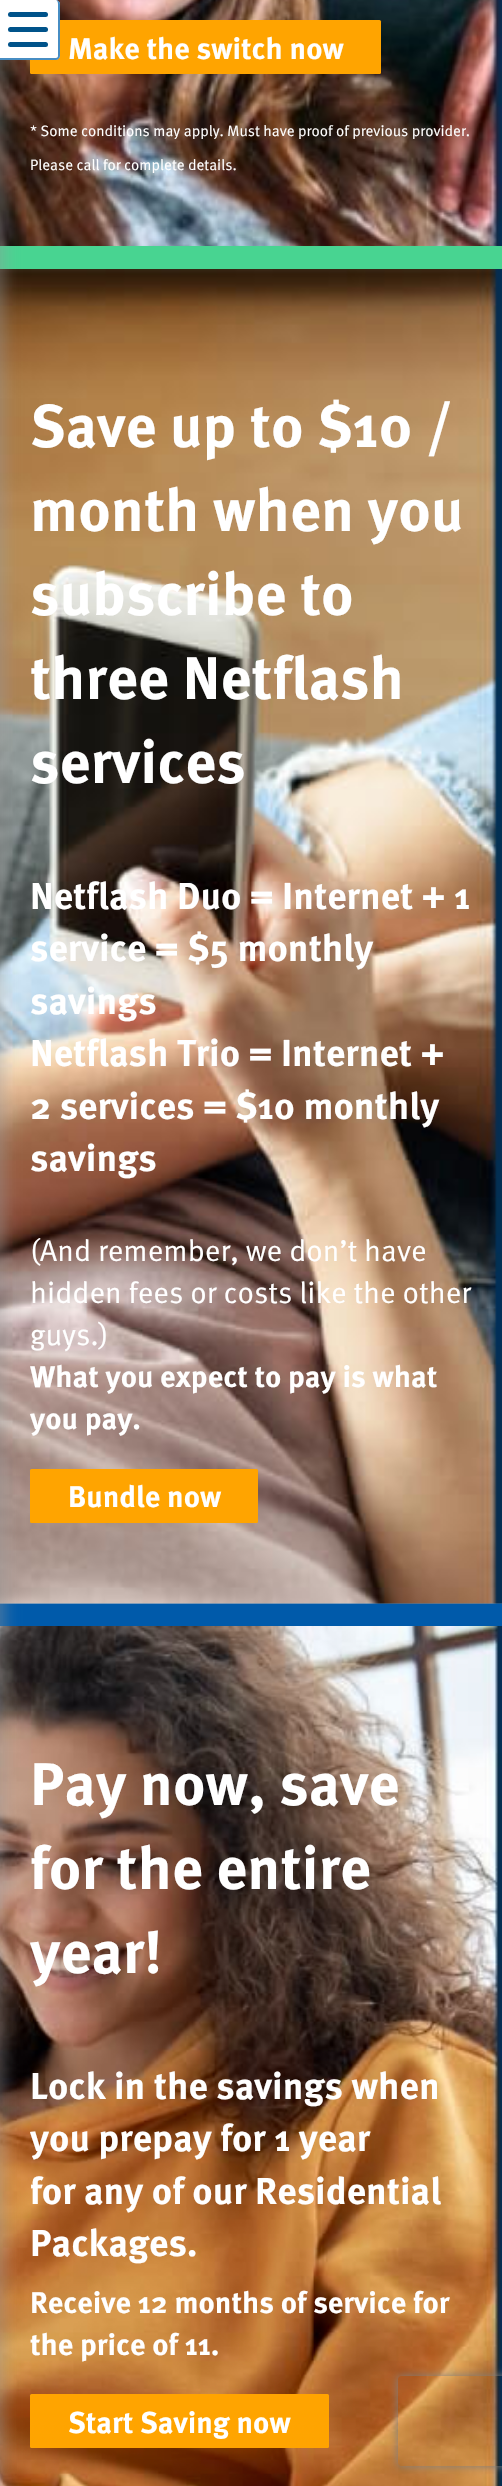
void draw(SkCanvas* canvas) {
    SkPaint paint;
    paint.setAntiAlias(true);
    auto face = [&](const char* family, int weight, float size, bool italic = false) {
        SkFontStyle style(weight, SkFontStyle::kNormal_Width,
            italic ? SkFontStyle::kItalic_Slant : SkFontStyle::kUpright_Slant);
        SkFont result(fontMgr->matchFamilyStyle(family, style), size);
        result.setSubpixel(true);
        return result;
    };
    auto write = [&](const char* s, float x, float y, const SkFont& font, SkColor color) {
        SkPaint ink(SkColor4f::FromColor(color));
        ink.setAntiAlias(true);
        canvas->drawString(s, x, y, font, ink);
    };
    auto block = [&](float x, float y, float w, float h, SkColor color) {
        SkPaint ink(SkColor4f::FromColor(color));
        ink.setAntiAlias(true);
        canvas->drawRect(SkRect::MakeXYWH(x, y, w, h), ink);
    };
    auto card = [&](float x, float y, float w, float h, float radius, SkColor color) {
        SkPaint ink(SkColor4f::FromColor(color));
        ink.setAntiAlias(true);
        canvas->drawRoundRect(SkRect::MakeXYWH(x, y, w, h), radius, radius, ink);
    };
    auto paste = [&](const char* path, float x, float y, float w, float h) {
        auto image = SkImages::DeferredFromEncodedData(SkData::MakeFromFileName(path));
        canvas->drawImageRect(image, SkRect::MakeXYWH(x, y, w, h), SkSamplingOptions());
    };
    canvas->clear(SK_ColorWHITE);
    {
        const SkColor colors[] = {SkColorSetRGB(28, 101, 158), SkColorSetRGB(51, 124, 187), SkColorSetRGB(51, 124, 187)};
        const float stops[] = {0, 0.24f, 1};
        const SkPoint ends[] = {{251, -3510}, {251, 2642}};
        paint.setShader(SkGradientShader::MakeLinear(ends, colors, stops, 3, SkTileMode::kClamp));
        paint.setAlpha(255);
    }
    canvas->drawRect(SkRect::MakeXYWH(0, 1603, 502, 1), paint);
    paste("pic1.png", 0, 0, 502, 246);
    paste("pic2.png", 0, 269, 502, 1335);
    block(0, 246, 502, 23, SkColorSetRGB(72, 212, 145));
    paste("pic3.png", 0, 1626, 502, 860);
    block(0, 1604, 502, 22, SkColorSetRGB(0, 90, 170));
    paint.setShader(nullptr);
    paint.setColor(SkColorSetARGB(115, 153, 153, 153));
    paint.setMaskFilter(SkMaskFilter::MakeBlur(kNormal_SkBlurStyle, 7.5f));
    canvas->drawRect(SkRect::MakeXYWH(-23, 11, 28, 2475), paint);
    paint.setMaskFilter(nullptr);
    card(30, 20, 351, 54, 1.5f, SkColorSetRGB(255, 164, 0));
    paint.setColor(SK_ColorWHITE);
    canvas->drawPath(SkPathBuilder().moveTo(0, 0).lineTo(55, 0).cubicTo(58, 0, 60, 2, 60, 5).lineTo(60, 55).cubicTo(60, 58, 58, 60, 55, 60).lineTo(0, 60).close().detach(), paint);
    paint.setColor(SkColorSetRGB(71, 141, 195));
    canvas->drawPath(SkPathBuilder(SkPathFillType::kEvenOdd).moveTo(0, 0).lineTo(56, 0).cubicTo(58, 0, 60, 2, 60, 4).lineTo(60, 56).cubicTo(60, 58, 58, 60, 56, 60).lineTo(0, 60).close().moveTo(0, 0).lineTo(56, 0).cubicTo(57, 0, 58, 2, 58, 4).lineTo(58, 56).cubicTo(58, 57, 57, 58, 56, 58).lineTo(0, 58).close().detach(), paint);
    card(8, 27, 40, 5, 2.5f, SkColorSetRGB(0, 83, 138));
    card(8, 12, 40, 5, 2.5f, SkColorSetRGB(0, 83, 138));
    card(8, 42, 40, 5, 2.5f, SkColorSetRGB(0, 83, 138));
    auto kFont1 = face("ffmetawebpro", 700, 30);
    write("Make the switch now", 68, 59, kFont1, SK_ColorWHITE);
    auto kFont2 = face("ffmetawebpro", 400, 15);
    write("* Some conditions may apply. Must have proof of previous provider.", 30, 136, kFont2, SK_ColorWHITE);
    write("Please call for complete details.", 30, 170, kFont2, SK_ColorWHITE);
    auto kFont3 = face("ffmetawebpro", 700, 60);
    write("Save up to $10 /", 30, 447, kFont3, SK_ColorWHITE);
    write("month when you", 30, 531, kFont3, SK_ColorWHITE);
    write("subscribe to", 30, 615, kFont3, SK_ColorWHITE);
    write("three Netflash", 30, 699, kFont3, SK_ColorWHITE);
    write("services", 30, 783, kFont3, SK_ColorWHITE);
    auto kFont4 = face("ffmetawebpro", 700, 37.5f);
    write("Netflash Duo = Internet + 1", 30, 909, kFont4, SK_ColorWHITE);
    write("service = $5 monthly", 30, 961, kFont4, SK_ColorWHITE);
    write("savings", 30, 1014, kFont4, SK_ColorWHITE);
    write("Netflash Trio = Internet +", 30, 1066, kFont4, SK_ColorWHITE);
    write("2 services = $10 monthly", 30, 1119, kFont4, SK_ColorWHITE);
    write("savings", 30, 1171, kFont4, SK_ColorWHITE);
    auto kFont5 = face("ffmetawebpro", 400, 30);
    write("(And remember, we don’t have", 30, 1261, kFont5, SK_ColorWHITE);
    write("hidden fees or costs like the other", 30, 1303, kFont5, SK_ColorWHITE);
    write("guys.)", 30, 1345, kFont5, SK_ColorWHITE);
    write("What you expect to pay is what", 30, 1387, kFont1, SK_ColorWHITE);
    write("you pay.", 30, 1429, kFont1, SK_ColorWHITE);
    card(30, 1469, 228, 54, 1.5f, SkColorSetRGB(255, 164, 0));
    write("Bundle now", 68, 1507, kFont1, SK_ColorWHITE);
    write("Pay now, save", 30, 1805, kFont3, SK_ColorWHITE);
    write("for the entire", 30, 1889, kFont3, SK_ColorWHITE);
    write("year!", 30, 1973, kFont3, SK_ColorWHITE);
    write("Lock in the savings when", 30, 2099, kFont4, SK_ColorWHITE);
    write("you prepay for 1 year", 30, 2151, kFont4, SK_ColorWHITE);
    write("for any of our Residential", 30, 2204, kFont4, SK_ColorWHITE);
    write("Packages.", 30, 2256, kFont4, SK_ColorWHITE);
    write("Receive 12 months of service for", 30, 2313, kFont1, SK_ColorWHITE);
    write("the price of 11.", 30, 2355, kFont1, SK_ColorWHITE);
    card(30, 2394, 299, 54, 1.5f, SkColorSetRGB(255, 164, 0));
    write("Start Saving now", 68, 2433, kFont1, SK_ColorWHITE);
    canvas->save();
    canvas->clipPath(SkPathBuilder(SkPathFillType::kEvenOdd).moveTo(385, 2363).lineTo(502, 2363).lineTo(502, 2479).lineTo(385, 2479).close().moveTo(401, 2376).lineTo(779, 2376).cubicTo(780.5f, 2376, 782, 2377.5f, 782, 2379).lineTo(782, 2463).cubicTo(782, 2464.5f, 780.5f, 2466, 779, 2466).lineTo(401, 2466).cubicTo(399.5f, 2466, 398, 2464.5f, 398, 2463).lineTo(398, 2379).cubicTo(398, 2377.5f, 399.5f, 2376, 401, 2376).close().detach(), true);
    paint.setColor(SkColorSetRGB(128, 128, 128));
    paint.setMaskFilter(SkMaskFilter::MakeBlur(kNormal_SkBlurStyle, 4));
    canvas->drawRoundRect(SkRect::MakeXYWH(398, 2376, 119, 90), 3, 3, paint);
    paint.setMaskFilter(nullptr);
    canvas->restore();
}
